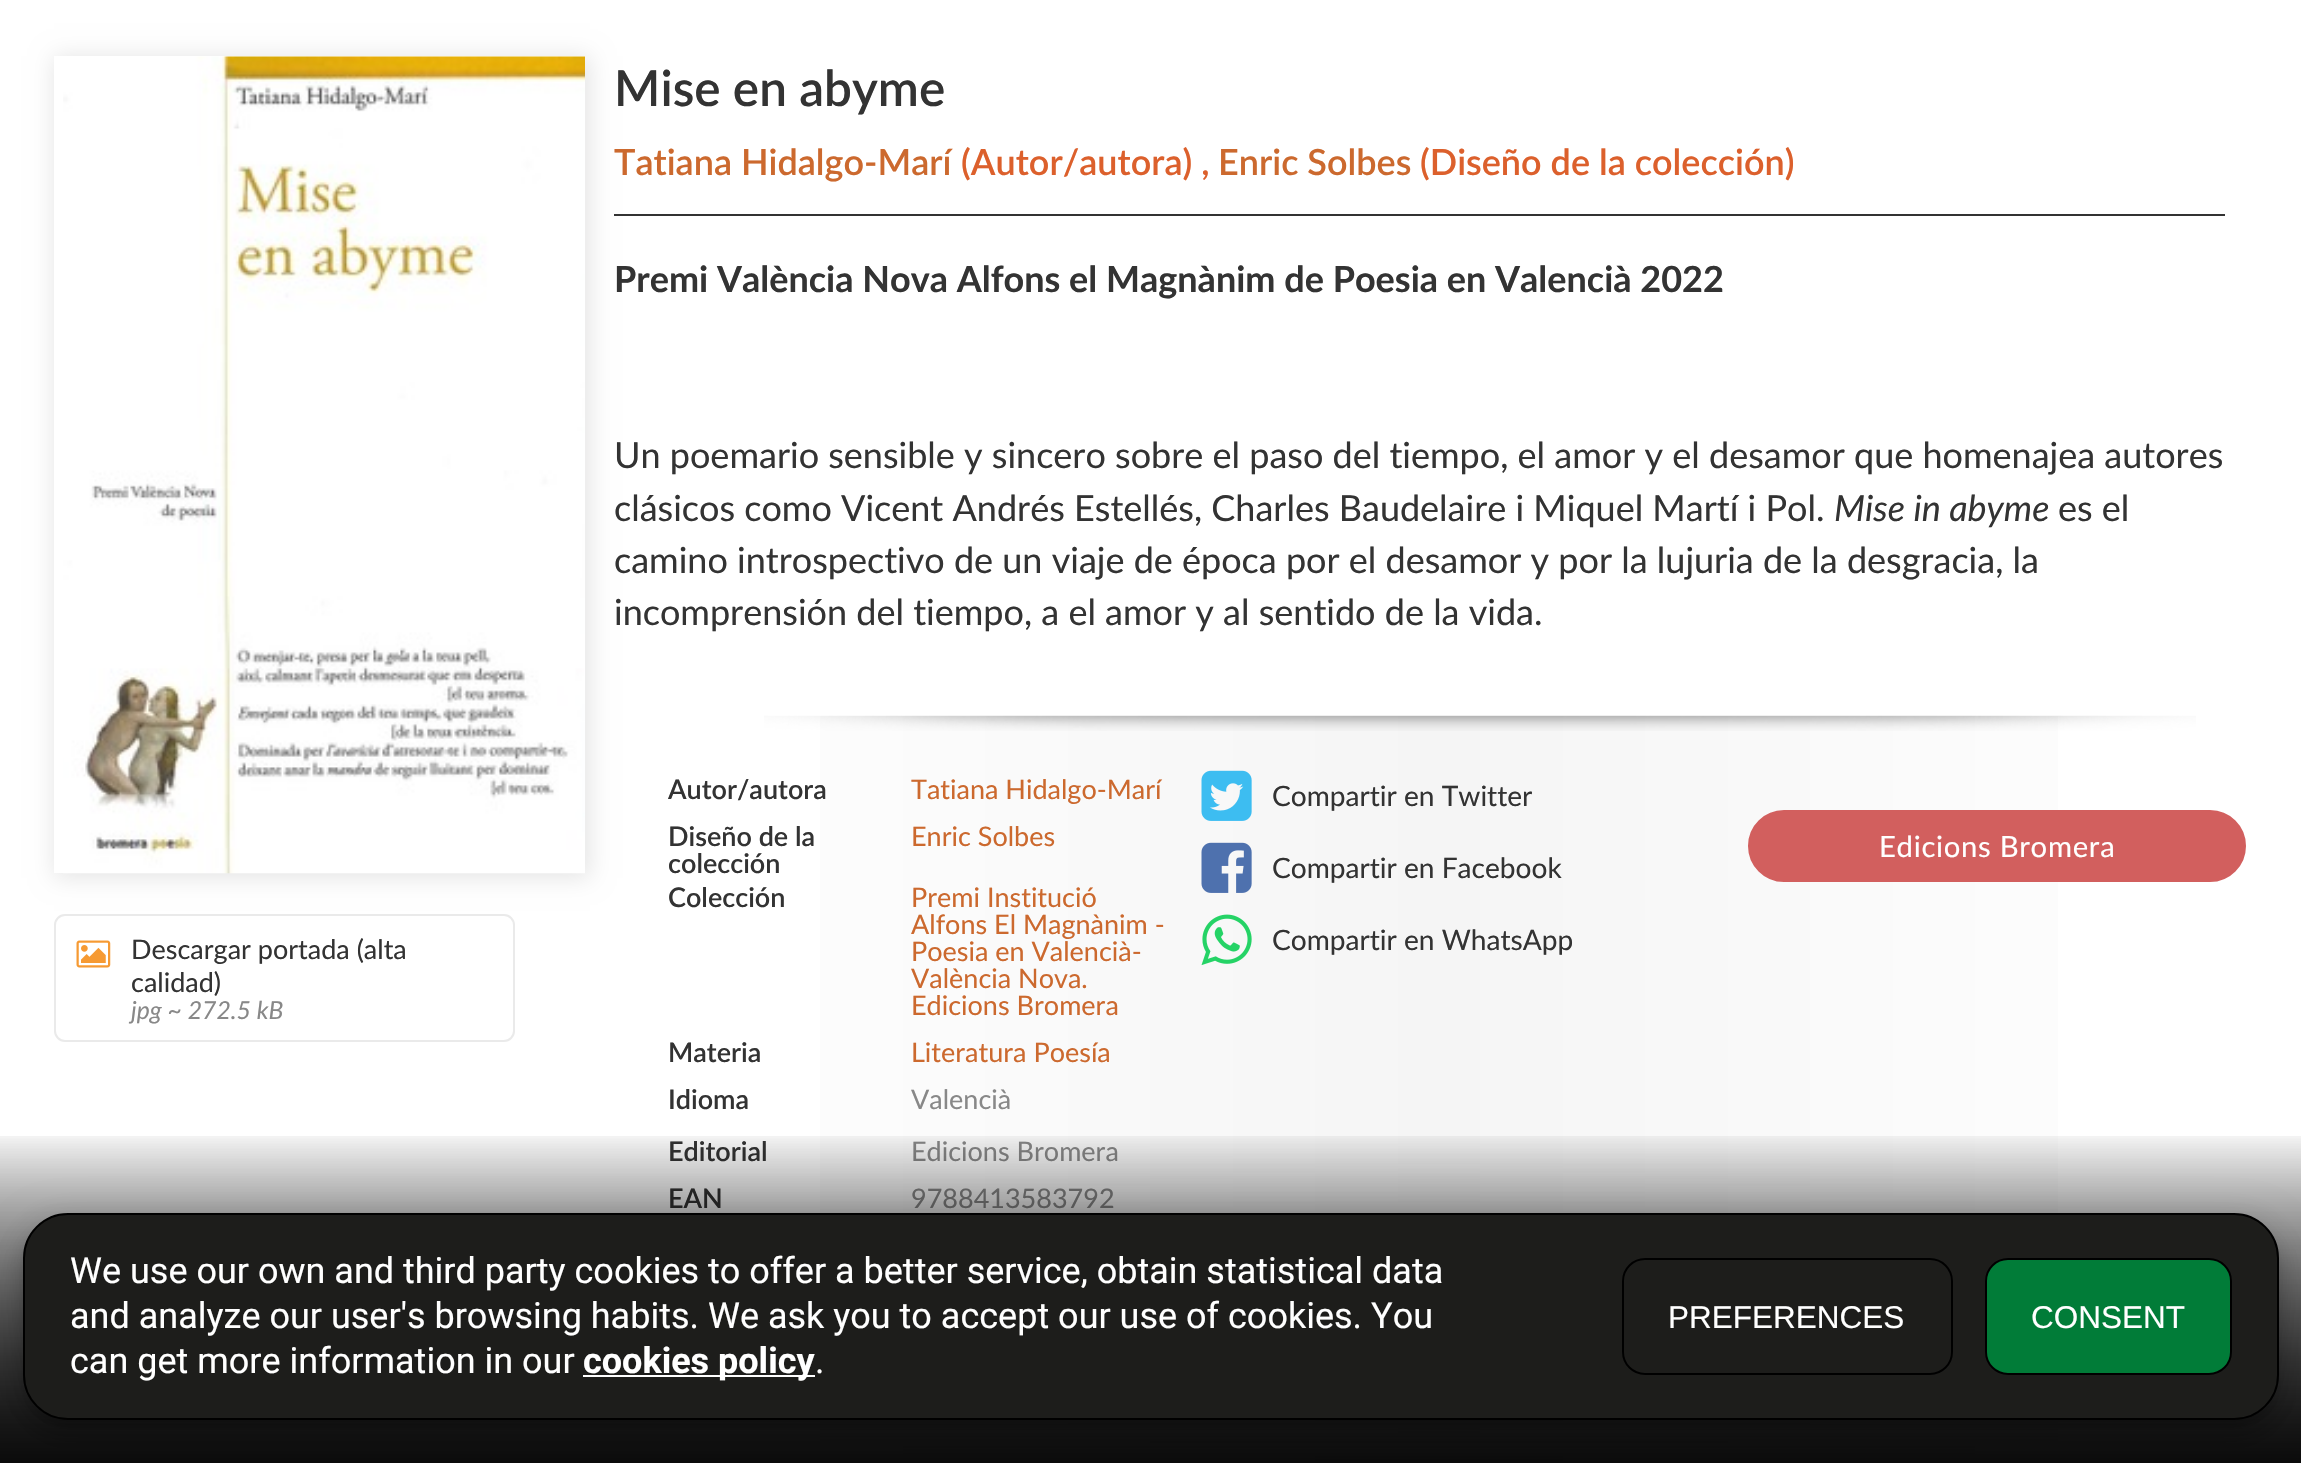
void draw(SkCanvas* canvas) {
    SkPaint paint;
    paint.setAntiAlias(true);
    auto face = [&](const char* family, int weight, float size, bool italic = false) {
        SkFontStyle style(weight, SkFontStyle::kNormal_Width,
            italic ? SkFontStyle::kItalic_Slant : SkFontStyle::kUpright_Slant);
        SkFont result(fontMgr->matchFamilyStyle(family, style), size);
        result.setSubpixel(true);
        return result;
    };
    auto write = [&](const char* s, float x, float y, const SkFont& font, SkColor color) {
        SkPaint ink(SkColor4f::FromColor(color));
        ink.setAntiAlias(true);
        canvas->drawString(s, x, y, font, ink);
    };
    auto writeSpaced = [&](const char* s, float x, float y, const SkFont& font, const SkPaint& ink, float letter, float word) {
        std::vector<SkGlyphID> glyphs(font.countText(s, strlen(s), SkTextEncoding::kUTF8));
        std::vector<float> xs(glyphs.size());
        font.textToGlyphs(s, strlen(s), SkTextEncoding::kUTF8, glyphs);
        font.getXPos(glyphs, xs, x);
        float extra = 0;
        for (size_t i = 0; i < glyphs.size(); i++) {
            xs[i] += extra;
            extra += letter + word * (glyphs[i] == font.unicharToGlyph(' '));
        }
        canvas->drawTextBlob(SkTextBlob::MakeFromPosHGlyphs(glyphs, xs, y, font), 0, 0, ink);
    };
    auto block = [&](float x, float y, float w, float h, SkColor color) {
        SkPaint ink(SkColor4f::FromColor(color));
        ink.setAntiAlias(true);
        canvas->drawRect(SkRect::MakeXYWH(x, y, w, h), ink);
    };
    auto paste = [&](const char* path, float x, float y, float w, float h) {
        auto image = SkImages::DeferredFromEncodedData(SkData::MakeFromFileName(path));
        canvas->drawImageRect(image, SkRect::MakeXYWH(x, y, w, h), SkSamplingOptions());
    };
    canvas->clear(SK_ColorWHITE);
    paint.setColor(SkColorSetARGB(26, 0, 0, 0));
    paint.setMaskFilter(SkMaskFilter::MakeBlur(kNormal_SkBlurStyle, 11));
    canvas->drawRect(SkRect::MakeXYWH(54, 56, 536, 822), paint);
    paint.setMaskFilter(nullptr);
    block(54, 56, 531, 817, SK_ColorWHITE);
    paste("pic1.png", 63, 56, 522, 818);
    paint.setStyle(SkPaint::kStroke_Style);
    paint.setStrokeWidth(2);
    paint.setColor(SkColorSetRGB(234, 234, 234));
    canvas->drawRoundRect(SkRect::MakeXYWH(55, 915, 459, 126), 10, 10, paint);
    paste("pic2.png", 76, 940, 35, 28);
    auto kFont1 = face("Lato", 400, 27);
    write("Descargar portada (alta", 131, 959, kFont1, SkColorSetRGB(51, 51, 51));
    write("calidad)", 131, 992, kFont1, SkColorSetRGB(51, 51, 51));
    auto kFont2 = face("Lato", 400, 24.75f, true);
    write("jpg ~ 272.5 kB", 131, 1019, kFont2, SkColorSetRGB(136, 136, 136));
    auto kFont3 = face("Lato", 600, 49.5f);
    write("Mise en abyme", 614, 106, kFont3, SkColorSetRGB(51, 51, 51));
    block(614, 214, 1611, 2, SkColorSetRGB(51, 51, 51));
    auto kFont4 = face("Lato", 600, 36);
    write("Tatiana Hidalgo-Marí", 614, 175, kFont4, SkColorSetRGB(204, 105, 46));
    write("(Autor/autora) ,", 961, 175, kFont4, SkColorSetRGB(220, 96, 44));
    write("Enric Solbes", 1218, 175, kFont4, SkColorSetRGB(204, 105, 46));
    write("(Diseño de la colección)", 1420, 175, kFont4, SkColorSetRGB(220, 96, 44));
    auto kFont5 = face("Lato", 700, 36);
    write("Premi València Nova Alfons el Magnànim de Poesia en Valencià 2022", 614, 292, kFont5, SkColorSetRGB(51, 51, 51));
    auto kFont6 = face("Lato", 400, 36);
    write("Un poemario sensible y sincero sobre el paso del tiempo, el amor y el desamor que homenajea autores", 614, 468, kFont6, SkColorSetRGB(51, 51, 51));
    write("clásicos como Vicent Andrés Estellés, Charles Baudelaire i Miquel Martí i Pol.", 614, 521, kFont6, SkColorSetRGB(51, 51, 51));
    auto kFont7 = face("Lato", 400, 36, true);
    write("Mise in abyme", 1834, 521, kFont7, SkColorSetRGB(51, 51, 51));
    write("es el", 2058, 521, kFont6, SkColorSetRGB(51, 51, 51));
    write("camino introspectivo de un viaje de época por el desamor y por la lujuria de la desgracia, la", 614, 573, kFont6, SkColorSetRGB(51, 51, 51));
    write("incomprensión del tiempo, a el amor y al sentido de la vida.", 614, 625, kFont6, SkColorSetRGB(51, 51, 51));
    paint.setStyle(SkPaint::kFill_Style);
    {
        const SkColor colors[] = {SK_ColorWHITE, SkColorSetRGB(245, 245, 245), SK_ColorWHITE};
        const float stops[] = {0, 0.5f, 1};
        const SkPoint ends[] = {{614, 1175}, {2264, 1175}};
        paint.setShader(SkGradientShader::MakeLinear(ends, colors, stops, 3, SkTileMode::kClamp));
        paint.setAlpha(255);
    }
    canvas->drawRect(SkRect::MakeXYWH(820, 716, 1238, 747), paint);
    paste("pic3.png", 764, 715, 1432, 16);
    auto kFont8 = face("Lato", 600, 27);
    write("Autor/autora", 668, 799, kFont8, SkColorSetRGB(51, 51, 51));
    write("Tatiana Hidalgo-Marí", 911, 799, kFont1, SkColorSetRGB(204, 105, 46));
    write("Diseño de la", 668, 846, kFont8, SkColorSetRGB(51, 51, 51));
    write("colección", 668, 873, kFont8, SkColorSetRGB(51, 51, 51));
    write("Enric Solbes", 911, 846, kFont1, SkColorSetRGB(204, 105, 46));
    write("Colección", 668, 907, kFont8, SkColorSetRGB(51, 51, 51));
    write("Premi Institució", 911, 907, kFont1, SkColorSetRGB(204, 105, 46));
    write("Alfons El Magnànim -", 911, 934, kFont1, SkColorSetRGB(204, 105, 46));
    write("Poesia en Valencià-", 911, 961, kFont1, SkColorSetRGB(204, 105, 46));
    write("València Nova.", 911, 988, kFont1, SkColorSetRGB(204, 105, 46));
    write("Edicions Bromera", 911, 1015, kFont1, SkColorSetRGB(204, 105, 46));
    write("Materia", 668, 1062, kFont8, SkColorSetRGB(51, 51, 51));
    write("Literatura Poesía", 911, 1062, kFont1, SkColorSetRGB(204, 105, 46));
    write("Idioma", 668, 1109, kFont8, SkColorSetRGB(51, 51, 51));
    write("Valencià", 911, 1109, kFont1, SkColorSetRGB(136, 136, 136));
    write("Editorial", 668, 1161, kFont8, SkColorSetRGB(51, 51, 51));
    write("Edicions Bromera", 911, 1161, kFont1, SkColorSetRGB(136, 136, 136));
    write("EAN", 668, 1208, kFont8, SkColorSetRGB(51, 51, 51));
    write("9788413583792", 911, 1208, kFont1, SkColorSetRGB(136, 136, 136));
    paste("pic4.png", 1201, 770, 51, 51);
    auto kFont9 = face("Lato", 400, 28.1f);
    write("Compartir en Twitter", 1272, 806, kFont9, SkColorSetRGB(51, 51, 51));
    paste("pic5.png", 1201, 842, 51, 51);
    write("Compartir en Facebook", 1272, 878, kFont9, SkColorSetRGB(51, 51, 51));
    paste("pic6.png", 1201, 914, 51, 52);
    write("Compartir en WhatsApp", 1272, 950, kFont9, SkColorSetRGB(51, 51, 51));
    paint.setShader(nullptr);
    paint.setColor(SkColorSetRGB(210, 95, 94));
    canvas->drawRoundRect(SkRect::MakeXYWH(1749, 811, 496, 70), 35, 35, paint);
    paint.setStyle(SkPaint::kStroke_Style);
    canvas->drawRoundRect(SkRect::MakeXYWH(1749, 811, 496, 70), 35, 35, paint);
    auto kFont10 = face("Lato", 400, 29.25f);
    paint.setStyle(SkPaint::kFill_Style);
    paint.setColor(SK_ColorWHITE);
    writeSpaced("Edicions Bromera", 1879, 857, kFont10, paint, 0.7f, 0);
    {
        const SkColor colors[] = {SkColorSetARGB(204, 0, 0, 0), SkColorSetARGB(0, 0, 0, 0)};
        const float stops[] = {0, 1};
        const SkPoint ends[] = {{1151, 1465}, {1151, 1127}};
        paint.setShader(SkGradientShader::MakeLinear(ends, colors, stops, 2, SkTileMode::kClamp));
        paint.setAlpha(255);
    }
    canvas->drawRect(SkRect::MakeXYWH(0, 1136, 2301, 327), paint);
    canvas->drawRect(SkRect::MakeXYWH(0, 1136, 2301, 327), paint);
    paint.setShader(nullptr);
    paint.setColor(SkColorSetARGB(31, 0, 0, 0));
    paint.setMaskFilter(SkMaskFilter::MakeBlur(kNormal_SkBlurStyle, 16));
    canvas->drawRoundRect(SkRect::MakeXYWH(18, 1215, 2266, 216), 50, 50, paint);
    paint.setMaskFilter(nullptr);
    paint.setColor(SkColorSetARGB(36, 0, 0, 0));
    paint.setMaskFilter(SkMaskFilter::MakeBlur(kNormal_SkBlurStyle, 11));
    canvas->drawRoundRect(SkRect::MakeXYWH(20, 1229, 2262, 211), 47, 47, paint);
    paint.setMaskFilter(nullptr);
    paint.setColor(SkColorSetARGB(51, 0, 0, 0));
    paint.setMaskFilter(SkMaskFilter::MakeBlur(kNormal_SkBlurStyle, 5.5f));
    canvas->drawRoundRect(SkRect::MakeXYWH(29, 1231, 2244, 193), 38, 38, paint);
    paint.setMaskFilter(nullptr);
    paint.setColor(SkColorSetRGB(29, 29, 27));
    canvas->drawRoundRect(SkRect::MakeXYWH(24, 1214, 2254, 205), 44, 44, paint);
    paint.setStyle(SkPaint::kStroke_Style);
    paint.setColor(SK_ColorBLACK);
    canvas->drawRoundRect(SkRect::MakeXYWH(24, 1214, 2254, 205), 44, 44, paint);
    auto kFont11 = face("Roboto", 400, 36);
    write("We use our own and third party cookies to offer a better service, obtain statistical data", 70, 1283, kFont11, SK_ColorWHITE);
    write("and analyze our user's browsing habits. We ask you to accept our use of cookies. You", 70, 1328, kFont11, SK_ColorWHITE);
    write("can get more information in our", 70, 1373, kFont11, SK_ColorWHITE);
    block(583, 1375, 232, 2, SK_ColorWHITE);
    auto kFont12 = face("Roboto", 700, 36);
    write("cookies policy", 583, 1373, kFont12, SK_ColorWHITE);
    write(".", 815, 1373, kFont11, SK_ColorWHITE);
    canvas->drawRoundRect(SkRect::MakeXYWH(1623, 1259, 329, 115), 22, 22, paint);
    auto kFont13 = face("Liberation Sans", 400, 31.5f);
    write("PREFERENCES", 1668, 1328, kFont13, SK_ColorWHITE);
    paint.setStyle(SkPaint::kFill_Style);
    paint.setColor(SkColorSetRGB(1, 124, 56));
    canvas->drawRoundRect(SkRect::MakeXYWH(1986, 1259, 245, 115), 22, 22, paint);
    paint.setStyle(SkPaint::kStroke_Style);
    paint.setColor(SK_ColorBLACK);
    canvas->drawRoundRect(SkRect::MakeXYWH(1986, 1259, 245, 115), 22, 22, paint);
    write("CONSENT", 2031, 1328, kFont13, SK_ColorWHITE);
}
